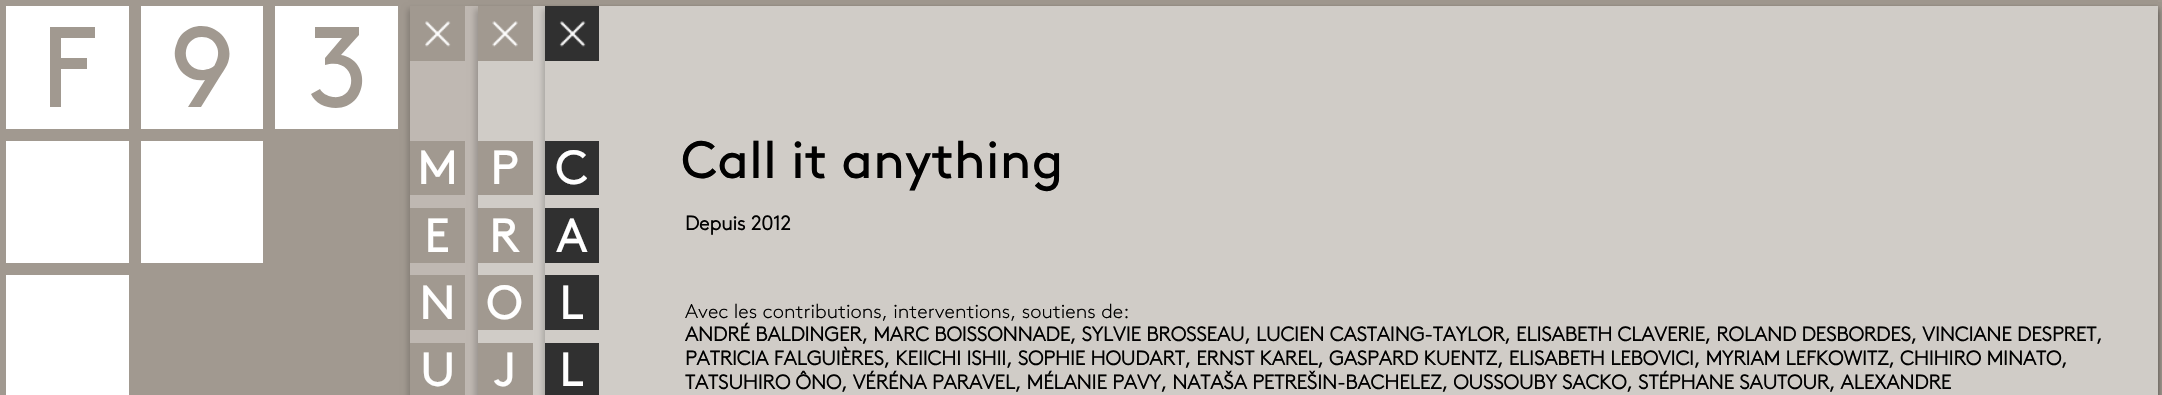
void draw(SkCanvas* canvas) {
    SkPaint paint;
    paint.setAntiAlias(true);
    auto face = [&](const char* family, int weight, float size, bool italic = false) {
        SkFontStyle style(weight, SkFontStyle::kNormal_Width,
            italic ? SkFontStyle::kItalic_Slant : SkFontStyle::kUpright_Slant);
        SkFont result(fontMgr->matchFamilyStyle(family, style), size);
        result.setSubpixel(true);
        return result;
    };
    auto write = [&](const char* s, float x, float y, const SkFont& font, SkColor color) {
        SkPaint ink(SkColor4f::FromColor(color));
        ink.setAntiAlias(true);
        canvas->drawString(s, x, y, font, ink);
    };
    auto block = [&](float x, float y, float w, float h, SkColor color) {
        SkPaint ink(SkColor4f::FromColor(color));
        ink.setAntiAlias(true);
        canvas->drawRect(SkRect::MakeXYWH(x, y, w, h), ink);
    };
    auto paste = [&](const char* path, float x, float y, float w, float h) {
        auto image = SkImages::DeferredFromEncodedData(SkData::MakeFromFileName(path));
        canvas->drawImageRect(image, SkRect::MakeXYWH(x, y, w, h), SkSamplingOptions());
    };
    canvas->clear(SkColorSetRGB(161, 153, 144));
    paint.setColor(SK_ColorWHITE);
    canvas->drawPath(SkPathBuilder().moveTo(6, 6).lineTo(6, 129).lineTo(129, 129).lineTo(129, 6).close().moveTo(95, 38).lineTo(61, 38).lineTo(61, 58).lineTo(87, 58).lineTo(87, 69).lineTo(61, 69).lineTo(61, 107).lineTo(50, 107).lineTo(50, 27).lineTo(95, 27).close().detach(), paint);
    canvas->save();
    canvas->clipRect(SkRect::MakeXYWH(141, 6, 122, 123));
    canvas->drawPath(SkPathBuilder().moveTo(141, 6).lineTo(141, 129).lineTo(264, 129).lineTo(264, 6).close().moveTo(227, 65).cubicTo(225, 69, 222, 73, 219, 78).lineTo(201, 107).lineTo(188, 107).lineTo(205, 80).cubicTo(193, 82, 181, 75, 177, 64).cubicTo(174, 57, 174, 50, 177, 43).cubicTo(179, 36, 184, 31, 191, 28).cubicTo(215, 19, 237, 43, 227, 65).close().detach(), paint);
    canvas->restore();
    canvas->drawPath(SkPathBuilder().moveTo(202, 37).cubicTo(181, 37, 180, 68.5f, 202, 70).cubicTo(205.5f, 70, 212, 68.5f, 214.5f, 65.5f).lineTo(216.5f, 61).cubicTo(221.5f, 50, 215, 37, 202, 37).close().detach(), paint);
    canvas->drawPath(SkPathBuilder().moveTo(275, 6).lineTo(275, 129).lineTo(398, 129).lineTo(398, 6).close().moveTo(336, 108).cubicTo(325, 108, 315, 103, 311, 94).lineTo(320, 89).cubicTo(322, 93, 327, 96, 333, 97).cubicTo(359, 100, 358, 56, 325, 65).lineTo(325, 58).lineTo(342, 38).lineTo(315, 38).lineTo(315, 27).lineTo(359, 27).lineTo(359, 35).lineTo(341, 55).cubicTo(372, 60, 368, 108, 336, 108).close().detach(), paint);
    block(6, 141, 123, 122, SK_ColorWHITE);
    block(141, 141, 122, 122, SK_ColorWHITE);
    block(6, 275, 123, 120, SK_ColorWHITE);
    canvas->save();
    canvas->clipPath(SkPathBuilder(SkPathFillType::kEvenOdd).moveTo(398, 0).lineTo(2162, 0).lineTo(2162, 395).lineTo(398, 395).close().moveTo(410, 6).lineTo(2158, 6).lineTo(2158, 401).lineTo(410, 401).close().detach(), true);
    paint.setColor(SkColorSetARGB(51, 0, 0, 0));
    paint.setMaskFilter(SkMaskFilter::MakeBlur(kNormal_SkBlurStyle, 3));
    canvas->drawRect(SkRect::MakeXYWH(408, 9, 1750, 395), paint);
    paint.setMaskFilter(nullptr);
    canvas->restore();
    block(410, 6, 68, 389, SkColorSetARGB(158, 208, 204, 199));
    block(410, 6, 55, 55, SkColorSetRGB(161, 153, 144));
    paste("pic1.png", 425, 21, 26, 26);
    block(410, 141, 55, 54, SkColorSetRGB(161, 153, 144));
    auto kFont1 = face("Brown", 400, 48);
    write("M", 417, 184, kFont1, SK_ColorWHITE);
    block(410, 208, 55, 55, SkColorSetRGB(161, 153, 144));
    write("E", 424, 252, kFont1, SK_ColorWHITE);
    block(410, 275, 55, 55, SkColorSetRGB(161, 153, 144));
    write("N", 419, 319, kFont1, SK_ColorWHITE);
    block(410, 343, 55, 52, SkColorSetRGB(161, 153, 144));
    write("U", 420, 386, kFont1, SK_ColorWHITE);
    paint.setMaskFilter(SkMaskFilter::MakeBlur(kNormal_SkBlurStyle, 3));
    canvas->drawRect(SkRect::MakeXYWH(475, 9, 1683, 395), paint);
    paint.setMaskFilter(nullptr);
    block(478, 6, 67, 389, SkColorSetRGB(208, 204, 199));
    block(478, 6, 55, 55, SkColorSetRGB(161, 153, 144));
    paste("pic2.png", 492, 21, 26, 26);
    block(478, 141, 55, 54, SkColorSetRGB(161, 153, 144));
    write("P", 490, 184, kFont1, SK_ColorWHITE);
    block(478, 208, 55, 55, SkColorSetRGB(161, 153, 144));
    write("R", 489, 252, kFont1, SK_ColorWHITE);
    block(478, 275, 55, 55, SkColorSetRGB(161, 153, 144));
    write("O", 486, 319, kFont1, SK_ColorWHITE);
    block(478, 343, 55, 52, SkColorSetRGB(161, 153, 144));
    write("J", 494, 386, kFont1, SK_ColorWHITE);
    paint.setMaskFilter(SkMaskFilter::MakeBlur(kNormal_SkBlurStyle, 3));
    canvas->drawRect(SkRect::MakeXYWH(543, 9, 1615, 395), paint);
    paint.setMaskFilter(nullptr);
    block(545, 6, 1613, 389, SkColorSetRGB(208, 204, 199));
    block(545, 6, 54, 55, SkColorSetRGB(48, 48, 48));
    paste("pic3.png", 559, 21, 27, 26);
    block(545, 141, 54, 54, SkColorSetRGB(48, 48, 48));
    write("C", 555, 184, kFont1, SK_ColorWHITE);
    block(545, 208, 54, 55, SkColorSetRGB(48, 48, 48));
    write("A", 556, 252, kFont1, SK_ColorWHITE);
    block(545, 275, 54, 55, SkColorSetRGB(48, 48, 48));
    write("L", 559, 319, kFont1, SK_ColorWHITE);
    block(545, 343, 54, 52, SkColorSetRGB(48, 48, 48));
    write("L", 559, 386, kFont1, SK_ColorWHITE);
    auto kFont2 = face("Brown", 400, 52.5f);
    write("Call it anything", 681, 178, kFont2, SK_ColorBLACK);
    auto kFont3 = face("Brown", 700, 20);
    write("Depuis 2012", 685, 230, kFont3, SK_ColorBLACK);
    auto kFont4 = face("Brown", 300, 20);
    write("Avec les contributions, interventions, soutiens de:", 685, 318, kFont4, SK_ColorBLACK);
    write("ANDRÉ BALDINGER, MARC BOISSONNADE, SYLVIE BROSSEAU, LUCIEN CASTAING-TAYLOR, ELISABETH CLAVERIE, ROLAND DESBORDES, VINCIANE DESPRET,", 685, 341, kFont3, SK_ColorBLACK);
    write("PATRICIA FALGUIÈRES, KEIICHI ISHII, SOPHIE HOUDART, ERNST KAREL, GASPARD KUENTZ, ELISABETH LEBOVICI, MYRIAM LEFKOWITZ, CHIHIRO MINATO,", 685, 365, kFont3, SK_ColorBLACK);
    write("TATSUHIRO ÔNO, VÉRÉNA PARAVEL, MÉLANIE PAVY, NATAŠA PETREŠIN-BACHELEZ, OUSSOUBY SACKO, STÉPHANE SAUTOUR, ALEXANDRE", 685, 389, kFont3, SK_ColorBLACK);
}
